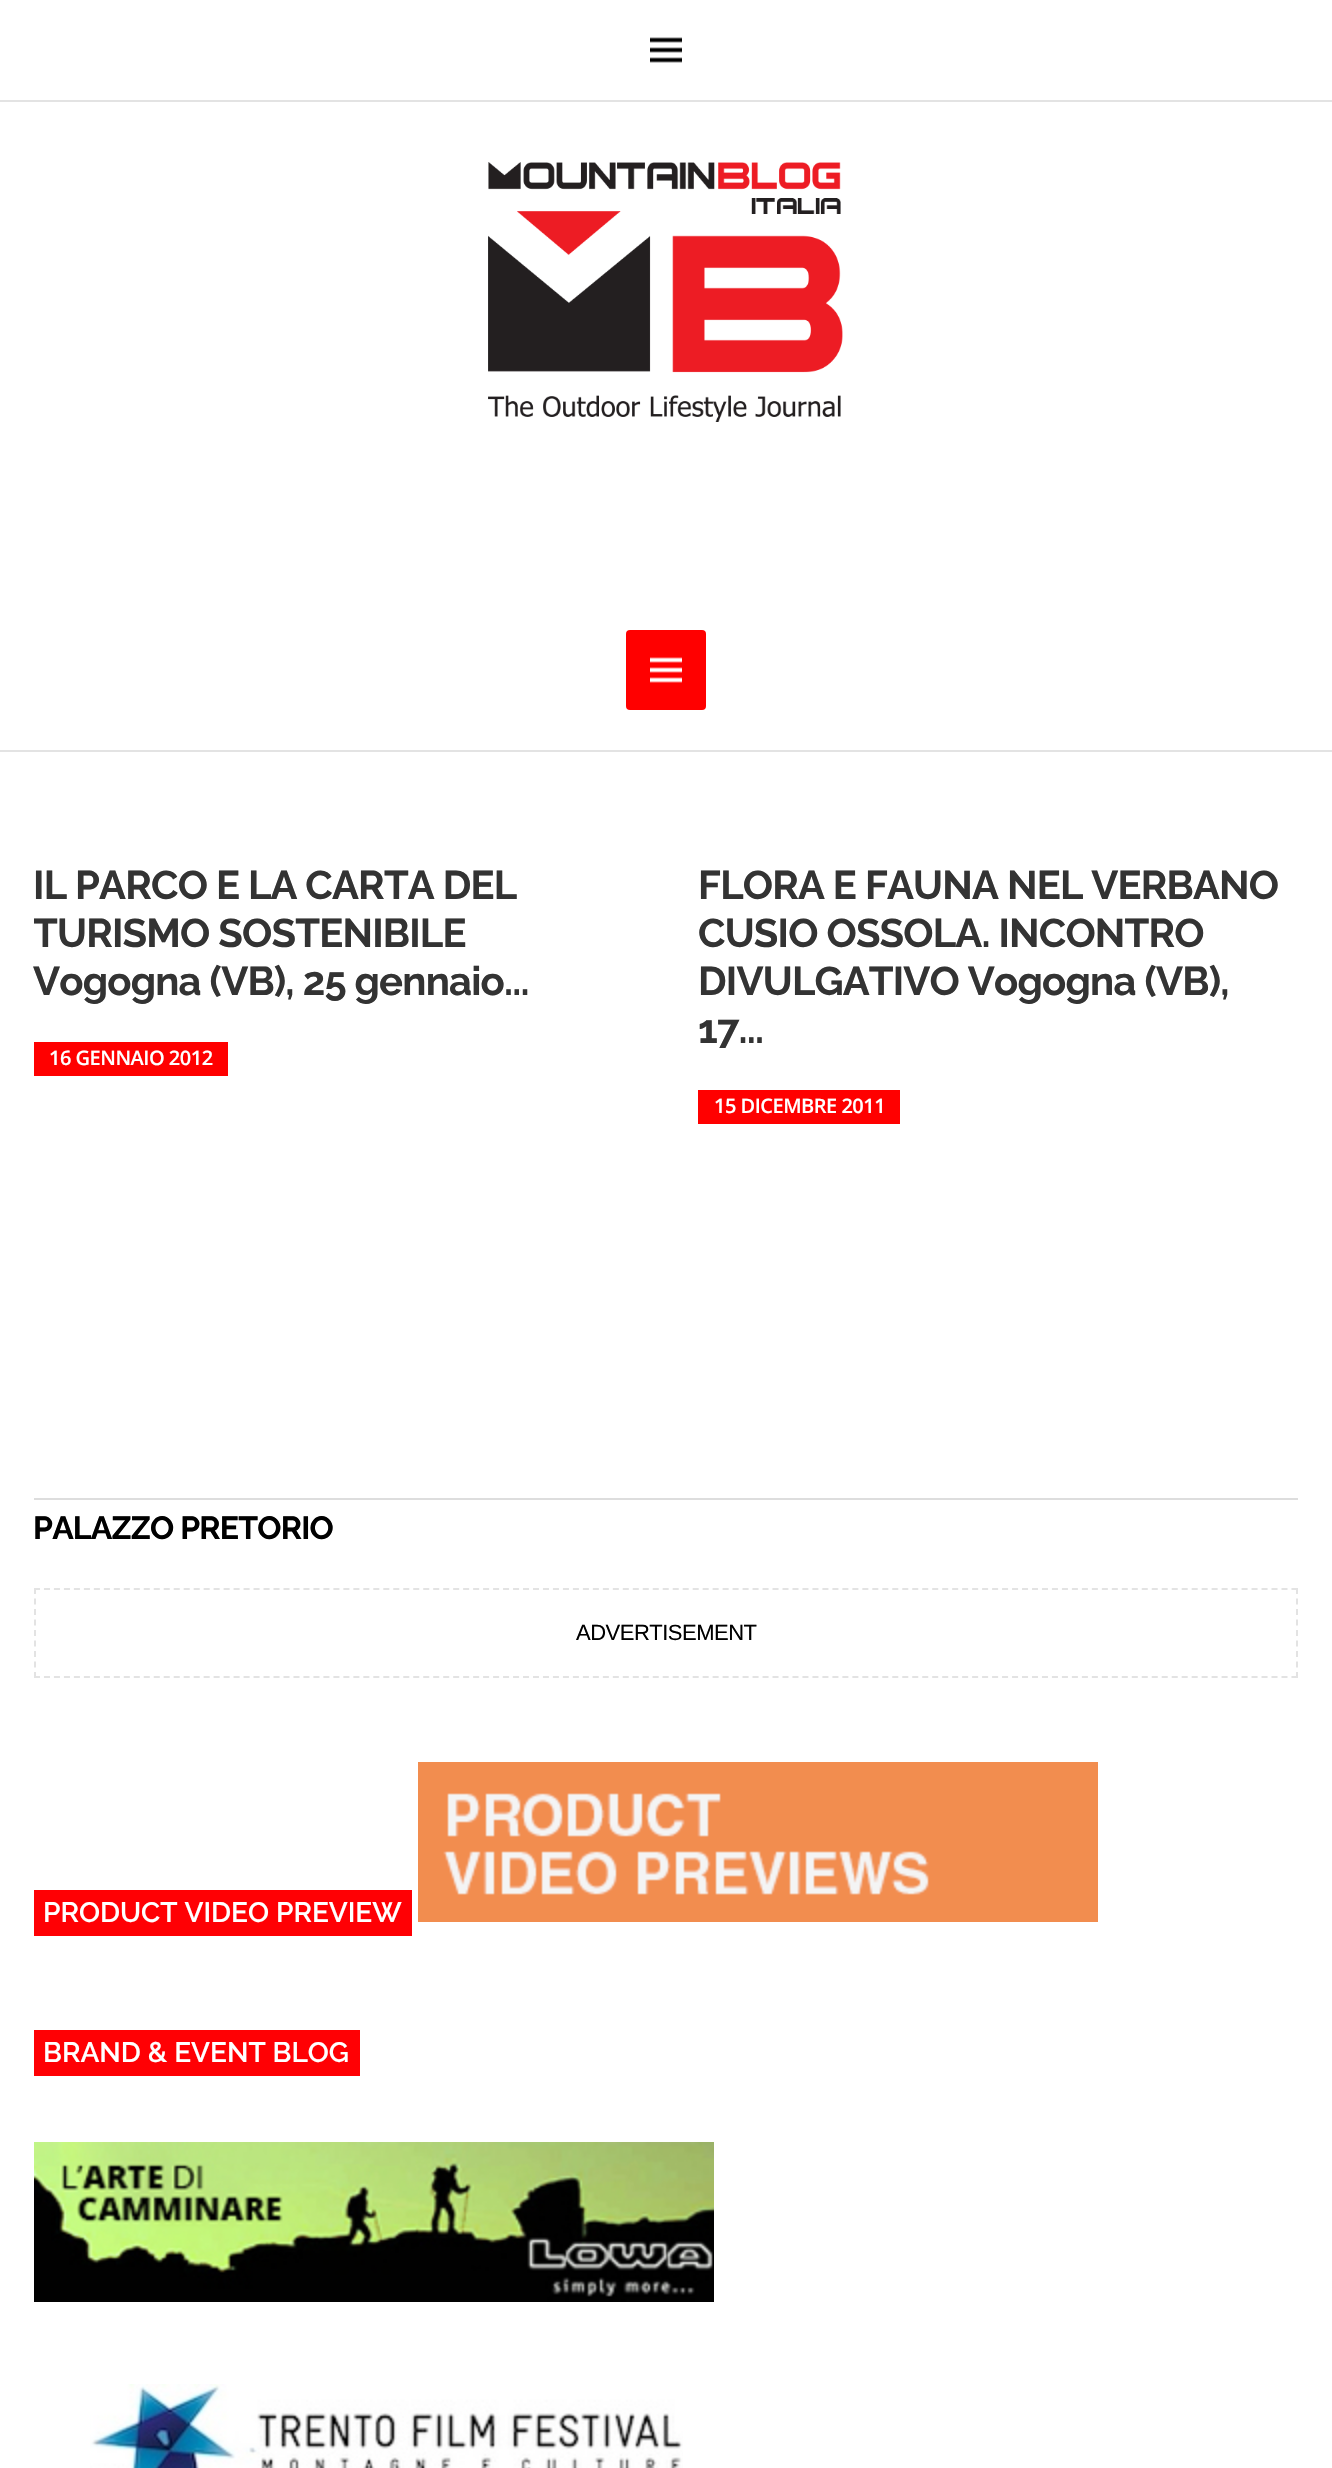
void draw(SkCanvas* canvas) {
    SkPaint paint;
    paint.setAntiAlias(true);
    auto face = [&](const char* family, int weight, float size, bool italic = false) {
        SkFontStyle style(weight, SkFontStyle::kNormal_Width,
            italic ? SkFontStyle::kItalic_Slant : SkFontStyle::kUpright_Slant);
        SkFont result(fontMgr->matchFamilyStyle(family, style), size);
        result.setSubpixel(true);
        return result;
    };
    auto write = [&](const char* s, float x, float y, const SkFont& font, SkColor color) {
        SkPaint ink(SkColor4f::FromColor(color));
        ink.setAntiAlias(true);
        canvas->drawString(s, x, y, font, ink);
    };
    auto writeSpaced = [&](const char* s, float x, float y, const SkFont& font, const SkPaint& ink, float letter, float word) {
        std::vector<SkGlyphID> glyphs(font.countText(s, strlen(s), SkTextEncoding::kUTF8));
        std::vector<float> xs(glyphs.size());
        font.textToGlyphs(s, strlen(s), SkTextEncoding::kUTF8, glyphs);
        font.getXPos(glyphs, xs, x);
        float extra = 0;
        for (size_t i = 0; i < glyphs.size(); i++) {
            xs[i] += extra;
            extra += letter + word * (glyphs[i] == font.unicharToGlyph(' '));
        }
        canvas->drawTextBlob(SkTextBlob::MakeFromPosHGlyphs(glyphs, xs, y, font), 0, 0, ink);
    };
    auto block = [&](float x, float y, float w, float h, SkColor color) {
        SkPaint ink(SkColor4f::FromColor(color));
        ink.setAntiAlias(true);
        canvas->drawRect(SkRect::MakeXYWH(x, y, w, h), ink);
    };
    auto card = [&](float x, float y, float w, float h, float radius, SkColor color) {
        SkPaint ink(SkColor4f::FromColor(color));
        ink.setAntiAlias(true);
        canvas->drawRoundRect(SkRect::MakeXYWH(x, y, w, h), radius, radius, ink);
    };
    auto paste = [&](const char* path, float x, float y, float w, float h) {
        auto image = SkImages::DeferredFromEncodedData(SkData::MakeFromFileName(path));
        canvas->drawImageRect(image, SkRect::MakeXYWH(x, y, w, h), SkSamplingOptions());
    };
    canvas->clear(SK_ColorWHITE);
    paste("pic1.png", 650, 37, 32, 26);
    block(0, 100, 1332, 2, SkColorSetRGB(227, 227, 227));
    block(0, 750, 1332, 2, SkColorSetRGB(227, 227, 227));
    paste("pic2.png", 488, 162, 355, 260);
    card(626, 630, 80, 80, 4, SkColorSetRGB(255, 0, 0));
    paste("pic3.png", 650, 657, 32, 26);
    auto kFont1 = face("Raleway", 700, 40);
    paint.setColor(SkColorSetRGB(51, 51, 51));
    writeSpaced("IL PARCO E LA CARTA DEL", 33, 899, kFont1, paint, -0.8f, 0);
    canvas->save();
    canvas->clipRect(SkRect::MakeXYWH(34, 832, 598, 348));
    writeSpaced("TURISMO SOSTENIBILE", 33, 947, kFont1, paint, -0.8f, 0);
    canvas->restore();
    writeSpaced("Vogogna (VB), 25 gennaio...", 33, 995, kFont1, paint, -0.8f, 0);
    block(34, 1042, 194, 34, SkColorSetRGB(255, 0, 0));
    auto kFont2 = face("Open Sans", 600, 20);
    paint.setColor(SK_ColorWHITE);
    writeSpaced("16 GENNAIO 2012", 49, 1065, kFont2, paint, -0.5f, 0);
    paint.setColor(SkColorSetRGB(51, 51, 51));
    writeSpaced("FLORA E FAUNA NEL VERBANO", 698, 899, kFont1, paint, -0.8f, 0);
    writeSpaced("CUSIO OSSOLA. INCONTRO", 698, 947, kFont1, paint, -0.8f, 0);
    writeSpaced("DIVULGATIVO Vogogna (VB),", 698, 995, kFont1, paint, -0.8f, 0);
    writeSpaced("17...", 698, 1043, kFont1, paint, -0.8f, 0);
    block(698, 1090, 202, 34, SkColorSetRGB(255, 0, 0));
    paint.setColor(SK_ColorWHITE);
    writeSpaced("15 DICEMBRE 2011", 714, 1113, kFont2, paint, -0.5f, 0);
    block(34, 1498, 1264, 2, SkColorSetRGB(221, 221, 221));
    auto kFont3 = face("Raleway", 700, 32);
    paint.setColor(SK_ColorBLACK);
    writeSpaced("PALAZZO PRETORIO", 33, 1539, kFont3, paint, -0.8f, 0);
    paint.setStyle(SkPaint::kStroke_Style);
    paint.setStrokeWidth(2);
    paint.setColor(SkColorSetRGB(227, 227, 227));
    paint.setPathEffect(SkDashPathEffect::Make({{6, 3.98f}}, 0));
    canvas->drawPath(SkPathBuilder().moveTo(34, 1589).lineTo(1298, 1589).detach(), paint);
    paint.setPathEffect(nullptr);
    paint.setPathEffect(SkDashPathEffect::Make({{6, 4.5f}}, 0));
    canvas->drawPath(SkPathBuilder().moveTo(1297, 1588).lineTo(1297, 1678).detach(), paint);
    paint.setPathEffect(nullptr);
    paint.setPathEffect(SkDashPathEffect::Make({{6, 3.98f}}, 0));
    canvas->drawPath(SkPathBuilder().moveTo(34, 1677).lineTo(1298, 1677).detach(), paint);
    paint.setPathEffect(nullptr);
    paint.setPathEffect(SkDashPathEffect::Make({{6, 4.5f}}, 0));
    canvas->drawPath(SkPathBuilder().moveTo(35, 1588).lineTo(35, 1678).detach(), paint);
    paint.setPathEffect(nullptr);
    auto kFont4 = face("Liberation Sans", 400, 22);
    paint.setStyle(SkPaint::kFill_Style);
    paint.setColor(SK_ColorBLACK);
    writeSpaced("ADVERTISEMENT", 576, 1640, kFont4, paint, -0.5f, 0);
    block(34, 1890, 378, 46, SkColorSetRGB(255, 0, 4));
    auto kFont5 = face("Raleway", 600, 28);
    write("PRODUCT VIDEO PREVIEW", 43, 1922, kFont5, SK_ColorWHITE);
    paste("pic4.png", 418, 1762, 680, 160);
    block(34, 2030, 326, 46, SkColorSetRGB(255, 0, 4));
    write("BRAND & EVENT BLOG", 43, 2062, kFont5, SK_ColorWHITE);
    paste("pic5.png", 34, 2142, 680, 160);
    paste("pic6.png", 90, 2384, 593, 84);
}
